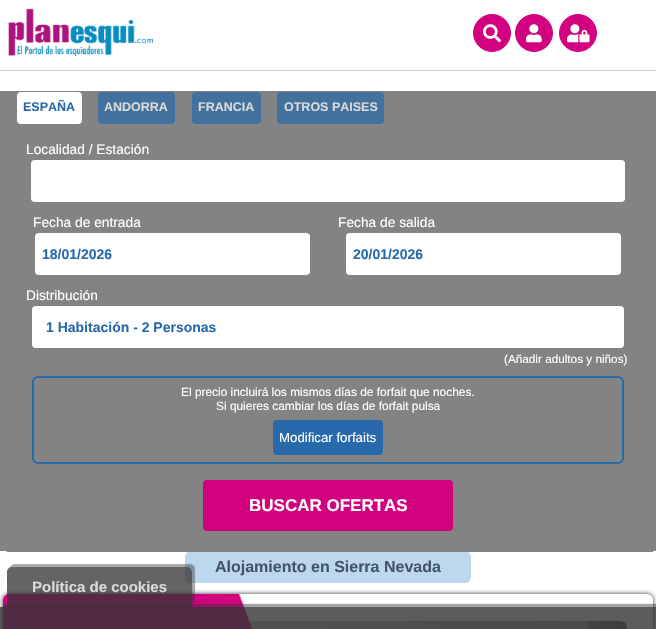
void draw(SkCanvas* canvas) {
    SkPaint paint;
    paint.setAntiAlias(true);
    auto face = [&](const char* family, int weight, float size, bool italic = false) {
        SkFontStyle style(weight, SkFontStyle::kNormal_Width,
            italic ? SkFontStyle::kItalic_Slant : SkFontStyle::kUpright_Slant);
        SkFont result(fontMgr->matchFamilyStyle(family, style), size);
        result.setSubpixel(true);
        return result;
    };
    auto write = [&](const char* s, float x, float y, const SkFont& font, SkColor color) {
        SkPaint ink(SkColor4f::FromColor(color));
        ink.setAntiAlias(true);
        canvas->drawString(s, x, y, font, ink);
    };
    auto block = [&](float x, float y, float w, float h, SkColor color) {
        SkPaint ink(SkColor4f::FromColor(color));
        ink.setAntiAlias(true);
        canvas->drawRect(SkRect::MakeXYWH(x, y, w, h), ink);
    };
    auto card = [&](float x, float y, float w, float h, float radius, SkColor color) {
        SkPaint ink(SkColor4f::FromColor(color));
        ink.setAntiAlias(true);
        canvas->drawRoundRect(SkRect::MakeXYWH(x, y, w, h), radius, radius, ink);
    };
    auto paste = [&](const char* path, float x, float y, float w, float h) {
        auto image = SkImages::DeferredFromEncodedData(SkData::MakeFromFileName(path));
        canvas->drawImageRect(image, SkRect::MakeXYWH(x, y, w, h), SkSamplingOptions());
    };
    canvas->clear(SK_ColorWHITE);
    block(0, 70, 656, 1, SkColorSetRGB(204, 204, 204));
    paste("pic1.png", 8, 8, 145, 48);
    paint.setColor(SkColorSetRGB(210, 1, 128));
    canvas->drawCircle(492, 33, 18.5f, paint);
    paint.setStyle(SkPaint::kStroke_Style);
    paint.setStrokeWidth(1);
    canvas->drawCircle(492, 33, 18.5f, paint);
    paste("pic2.png", 483, 24, 18, 19);
    paint.setStyle(SkPaint::kFill_Style);
    canvas->drawCircle(534, 33, 18.5f, paint);
    paint.setStyle(SkPaint::kStroke_Style);
    canvas->drawCircle(534, 33, 18.5f, paint);
    paste("pic3.png", 526, 24, 16, 19);
    paint.setStyle(SkPaint::kFill_Style);
    canvas->drawCircle(578, 33, 18.5f, paint);
    paint.setStyle(SkPaint::kStroke_Style);
    canvas->drawCircle(578, 33, 18.5f, paint);
    paste("pic4.png", 567, 24, 23, 19);
    block(0, 91, 656, 460, SkColorSetRGB(131, 131, 131));
    card(17, 92, 65, 32, 4, SK_ColorWHITE);
    auto kFont1 = face("Liberation Sans", 700, 12.5f);
    write("ESPAÑA", 23, 111, kFont1, SkColorSetRGB(39, 105, 170));
    card(98, 92, 77, 32, 4, SkColorSetRGB(67, 113, 158));
    write("ANDORRA", 104, 111, kFont1, SkColorSetRGB(218, 218, 218));
    card(192, 92, 69, 32, 4, SkColorSetRGB(67, 113, 158));
    write("FRANCIA", 198, 111, kFont1, SkColorSetRGB(218, 218, 218));
    card(277, 92, 107, 32, 4, SkColorSetRGB(67, 113, 158));
    write("OTROS PAISES", 284, 111, kFont1, SkColorSetRGB(218, 218, 218));
    card(185, 551, 286, 32, 6, SkColorSetRGB(189, 215, 238));
    paint.setStyle(SkPaint::kFill_Style);
    paint.setColor(SkColorSetRGB(131, 131, 131));
    canvas->drawPath(SkPathBuilder().moveTo(3, 130).lineTo(653, 130).lineTo(653, 552).lineTo(9, 552).cubicTo(5.5f, 552, 3, 549.5f, 3, 546).close().detach(), paint);
    auto kFont2 = face("Liberation Sans", 400, 13.75f);
    write("Localidad / Estación", 26, 154, kFont2, SK_ColorWHITE);
    card(31, 160, 594, 42, 4, SK_ColorWHITE);
    block(624, 162, 1, 38, SK_ColorWHITE);
    write("Fecha de entrada", 33, 227, kFont2, SK_ColorWHITE);
    card(35, 233, 275, 42, 4, SK_ColorWHITE);
    block(309, 235, 1, 38, SK_ColorWHITE);
    auto kFont3 = face("Liberation Sans", 700, 14);
    write("18/01/2026", 42, 259, kFont3, SkColorSetRGB(39, 105, 170));
    write("Fecha de salida", 338, 227, kFont2, SK_ColorWHITE);
    card(346, 233, 275, 42, 4, SK_ColorWHITE);
    block(620, 235, 1, 38, SK_ColorWHITE);
    write("20/01/2026", 353, 259, kFont3, SkColorSetRGB(39, 105, 170));
    write("Distribución", 26, 300, kFont2, SK_ColorWHITE);
    card(32, 306, 592, 42, 4, SK_ColorWHITE);
    write("1 Habitación - 2 Personas", 46, 332, kFont3, SkColorSetRGB(39, 105, 170));
    auto kFont4 = face("Liberation Sans", 400, 11.75f);
    write("(Añadir adultos y niños)", 504, 363, kFont4, SK_ColorWHITE);
    paint.setStyle(SkPaint::kStroke_Style);
    paint.setStrokeWidth(2);
    paint.setColor(SkColorSetRGB(39, 105, 170));
    canvas->drawRoundRect(SkRect::MakeXYWH(33, 377, 590, 86), 5, 5, paint);
    auto kFont5 = face("Liberation Sans", 400, 11.9f);
    write("El precio incluirá los mismos días de forfait que noches.", 181, 396, kFont5, SK_ColorWHITE);
    write("Si quieres cambiar los días de forfait pulsa", 216, 410, kFont5, SK_ColorWHITE);
    card(273, 420, 110, 35, 4, SkColorSetRGB(39, 105, 170));
    auto kFont6 = face("Liberation Sans", 400, 13.25f);
    write("Modificar forfaits", 279, 442, kFont6, SK_ColorWHITE);
    card(203, 480, 250, 51, 4, SkColorSetRGB(210, 1, 128));
    auto kFont7 = face("Liberation Sans", 700, 17);
    write("BUSCAR OFERTAS", 249, 511, kFont7, SK_ColorWHITE);
    auto kFont8 = face("Liberation Sans", 700, 16);
    write("Alojamiento en Sierra Nevada", 215, 572, kFont8, SkColorSetRGB(68, 84, 106));
    paint.setStyle(SkPaint::kFill_Style);
    paint.setColor(SkColorSetRGB(51, 51, 51));
    paint.setMaskFilter(SkMaskFilter::MakeBlur(kNormal_SkBlurStyle, 2.5f));
    canvas->drawRoundRect(SkRect::MakeXYWH(3, 594, 650, 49), 6, 6, paint);
    paint.setMaskFilter(nullptr);
    card(3, 594, 650, 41, 6, SK_ColorWHITE);
    paste("pic6.png", 248, 621, 379, 8);
    paste("pic5.png", 3, 594, 249, 35);
    canvas->save();
    canvas->clipRect(SkRect::MakeXYWH(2, 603, 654, 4));
    paint.setColor(SkColorSetARGB(115, 50, 50, 50));
    paint.setMaskFilter(SkMaskFilter::MakeBlur(kNormal_SkBlurStyle, 0.5f));
    canvas->drawRect(SkRect::MakeXYWH(3, 604, 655, 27), paint);
    paint.setMaskFilter(nullptr);
    canvas->restore();
    block(0, 607, 656, 22, SkColorSetARGB(204, 51, 51, 51));
    canvas->save();
    canvas->clipPath(SkPathBuilder(SkPathFillType::kEvenOdd).moveTo(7, 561).lineTo(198, 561).lineTo(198, 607).lineTo(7, 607).close().moveTo(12, 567).lineTo(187, 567).cubicTo(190, 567, 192, 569, 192, 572).lineTo(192, 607).lineTo(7, 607).lineTo(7, 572).cubicTo(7, 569, 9, 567, 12, 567).close().detach(), true);
    paint.setColor(SkColorSetARGB(110, 50, 50, 50));
    paint.setMaskFilter(SkMaskFilter::MakeBlur(kNormal_SkBlurStyle, 0.5f));
    canvas->drawRoundRect(SkRect::MakeXYWH(10, 564, 185, 40), 5, 5, paint);
    paint.setMaskFilter(nullptr);
    canvas->restore();
    paint.setColor(SkColorSetARGB(194, 51, 51, 51));
    canvas->drawPath(SkPathBuilder().moveTo(12, 567).lineTo(187, 567).cubicTo(190, 567, 192, 569, 192, 572).lineTo(192, 607).lineTo(7, 607).lineTo(7, 572).cubicTo(7, 569, 9, 567, 12, 567).close().detach(), paint);
    auto kFont9 = face("Liberation Sans", 700, 15);
    write("Política de cookies", 32, 592, kFont9, SkColorSetRGB(218, 218, 218));
}
